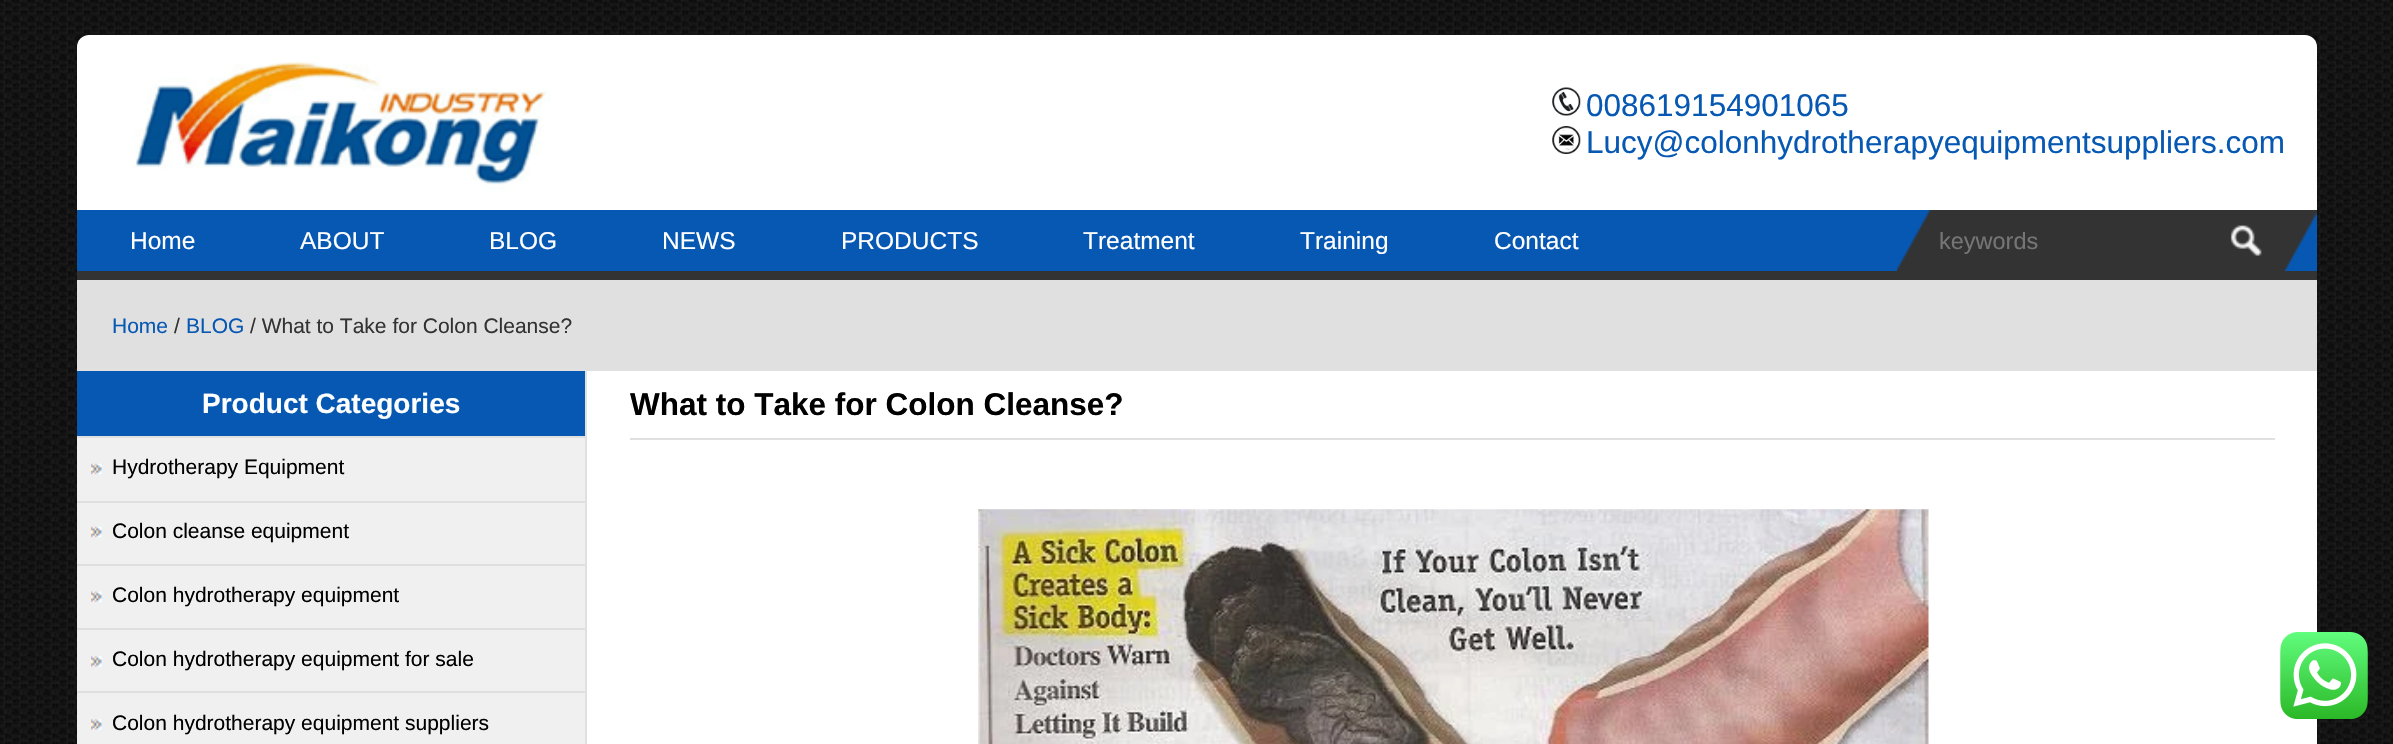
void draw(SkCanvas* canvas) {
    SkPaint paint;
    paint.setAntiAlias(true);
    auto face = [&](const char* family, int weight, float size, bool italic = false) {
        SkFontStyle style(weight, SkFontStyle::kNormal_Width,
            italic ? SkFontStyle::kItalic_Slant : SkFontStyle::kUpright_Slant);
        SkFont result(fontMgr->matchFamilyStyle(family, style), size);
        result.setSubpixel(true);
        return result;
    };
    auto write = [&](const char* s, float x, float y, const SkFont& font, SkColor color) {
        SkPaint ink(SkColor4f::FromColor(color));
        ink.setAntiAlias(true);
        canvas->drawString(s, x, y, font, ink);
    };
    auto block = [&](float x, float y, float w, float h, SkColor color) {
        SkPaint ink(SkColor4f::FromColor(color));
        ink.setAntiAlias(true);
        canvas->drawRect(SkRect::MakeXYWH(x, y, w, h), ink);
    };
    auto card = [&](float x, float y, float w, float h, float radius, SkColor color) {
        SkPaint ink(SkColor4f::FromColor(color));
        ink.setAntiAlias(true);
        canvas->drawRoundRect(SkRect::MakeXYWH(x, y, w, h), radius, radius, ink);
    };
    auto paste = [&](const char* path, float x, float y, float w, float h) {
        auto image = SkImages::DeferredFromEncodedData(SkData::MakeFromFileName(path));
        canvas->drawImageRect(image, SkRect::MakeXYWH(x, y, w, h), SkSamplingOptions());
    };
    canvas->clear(SK_ColorWHITE);
    paste("pic1.png", 0, 0, 2393, 744);
    card(77, 35, 2240, 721, 12, SK_ColorWHITE);
    paste("pic2.png", 134, 61, 417, 131);
    paste("pic3.png", 1552, 87, 29, 29);
    auto kFont1 = face("Liberation Sans", 400, 31.5f);
    write("008619154901065", 1586, 116, kFont1, SkColorSetRGB(7, 88, 179));
    paste("pic4.png", 1552, 126, 29, 28);
    write("Lucy@colonhydrotherapyequipmentsuppliers.com", 1586, 153, kFont1, SkColorSetRGB(7, 88, 179));
    block(77, 210, 2240, 61, SkColorSetRGB(7, 88, 179));
    block(77, 271, 2240, 9, SkColorSetRGB(51, 51, 51));
    auto kFont2 = face("Liberation Sans", 400, 24.5f);
    write("Home", 130, 249, kFont2, SK_ColorWHITE);
    write("ABOUT", 300, 249, kFont2, SK_ColorWHITE);
    write("BLOG", 489, 249, kFont2, SK_ColorWHITE);
    write("NEWS", 662, 249, kFont2, SK_ColorWHITE);
    write("PRODUCTS", 841, 249, kFont2, SK_ColorWHITE);
    write("Treatment", 1083, 249, kFont2, SK_ColorWHITE);
    write("Training", 1300, 249, kFont2, SK_ColorWHITE);
    write("Contact", 1494, 249, kFont2, SK_ColorWHITE);
    paste("pic5.png", 1897, 210, 420, 61);
    auto kFont3 = face("Liberation Sans", 400, 23.5f);
    write("keywords", 1939, 249, kFont3, SkColorSetRGB(117, 117, 117));
    paste("pic6.png", 2230, 225, 32, 31);
    block(77, 280, 2240, 91, SkColorSetRGB(224, 224, 224));
    auto kFont4 = face("Liberation Sans", 400, 21);
    write("Home", 112, 333, kFont4, SkColorSetRGB(7, 88, 179));
    write("/", 174, 333, kFont4, SkColorSetRGB(51, 51, 51));
    write("BLOG", 186, 333, kFont4, SkColorSetRGB(7, 88, 179));
    write("/ What to Take for Colon Cleanse?", 250, 333, kFont4, SkColorSetRGB(51, 51, 51));
    block(77, 438, 508, 306, SkColorSetRGB(240, 240, 240));
    block(585, 371, 2, 373, SkColorSetRGB(224, 224, 224));
    block(77, 371, 508, 65, SkColorSetRGB(7, 88, 179));
    auto kFont5 = face("Liberation Sans", 700, 28);
    write("Product Categories", 202, 413, kFont5, SK_ColorWHITE);
    block(77, 436, 508, 2, SkColorSetRGB(223, 223, 223));
    paste("pic7.png", 91, 463, 11, 12);
    write("Hydrotherapy Equipment", 112, 474, kFont4, SK_ColorBLACK);
    block(77, 501, 508, 2, SkColorSetRGB(223, 223, 223));
    paste("pic7.png", 91, 526, 11, 12);
    write("Colon cleanse equipment", 112, 538, kFont4, SK_ColorBLACK);
    block(77, 564, 508, 2, SkColorSetRGB(223, 223, 223));
    paste("pic8.png", 91, 591, 11, 11);
    write("Colon hydrotherapy equipment", 112, 602, kFont4, SK_ColorBLACK);
    block(77, 628, 508, 2, SkColorSetRGB(223, 223, 223));
    paste("pic9.png", 91, 656, 11, 11);
    write("Colon hydrotherapy equipment for sale", 112, 666, kFont4, SK_ColorBLACK);
    block(77, 691, 508, 2, SkColorSetRGB(223, 223, 223));
    paste("pic9.png", 91, 719, 11, 11);
    write("Colon hydrotherapy equipment suppliers", 112, 730, kFont4, SK_ColorBLACK);
    block(630, 438, 1645, 2, SkColorSetRGB(224, 224, 224));
    auto kFont6 = face("Liberation Sans", 700, 31.5f);
    write("What to Take for Colon Cleanse?", 630, 415, kFont6, SK_ColorBLACK);
    paste("pic10.png", 978, 509, 951, 235);
    paste("pic11.png", 2280, 632, 88, 87);
}
